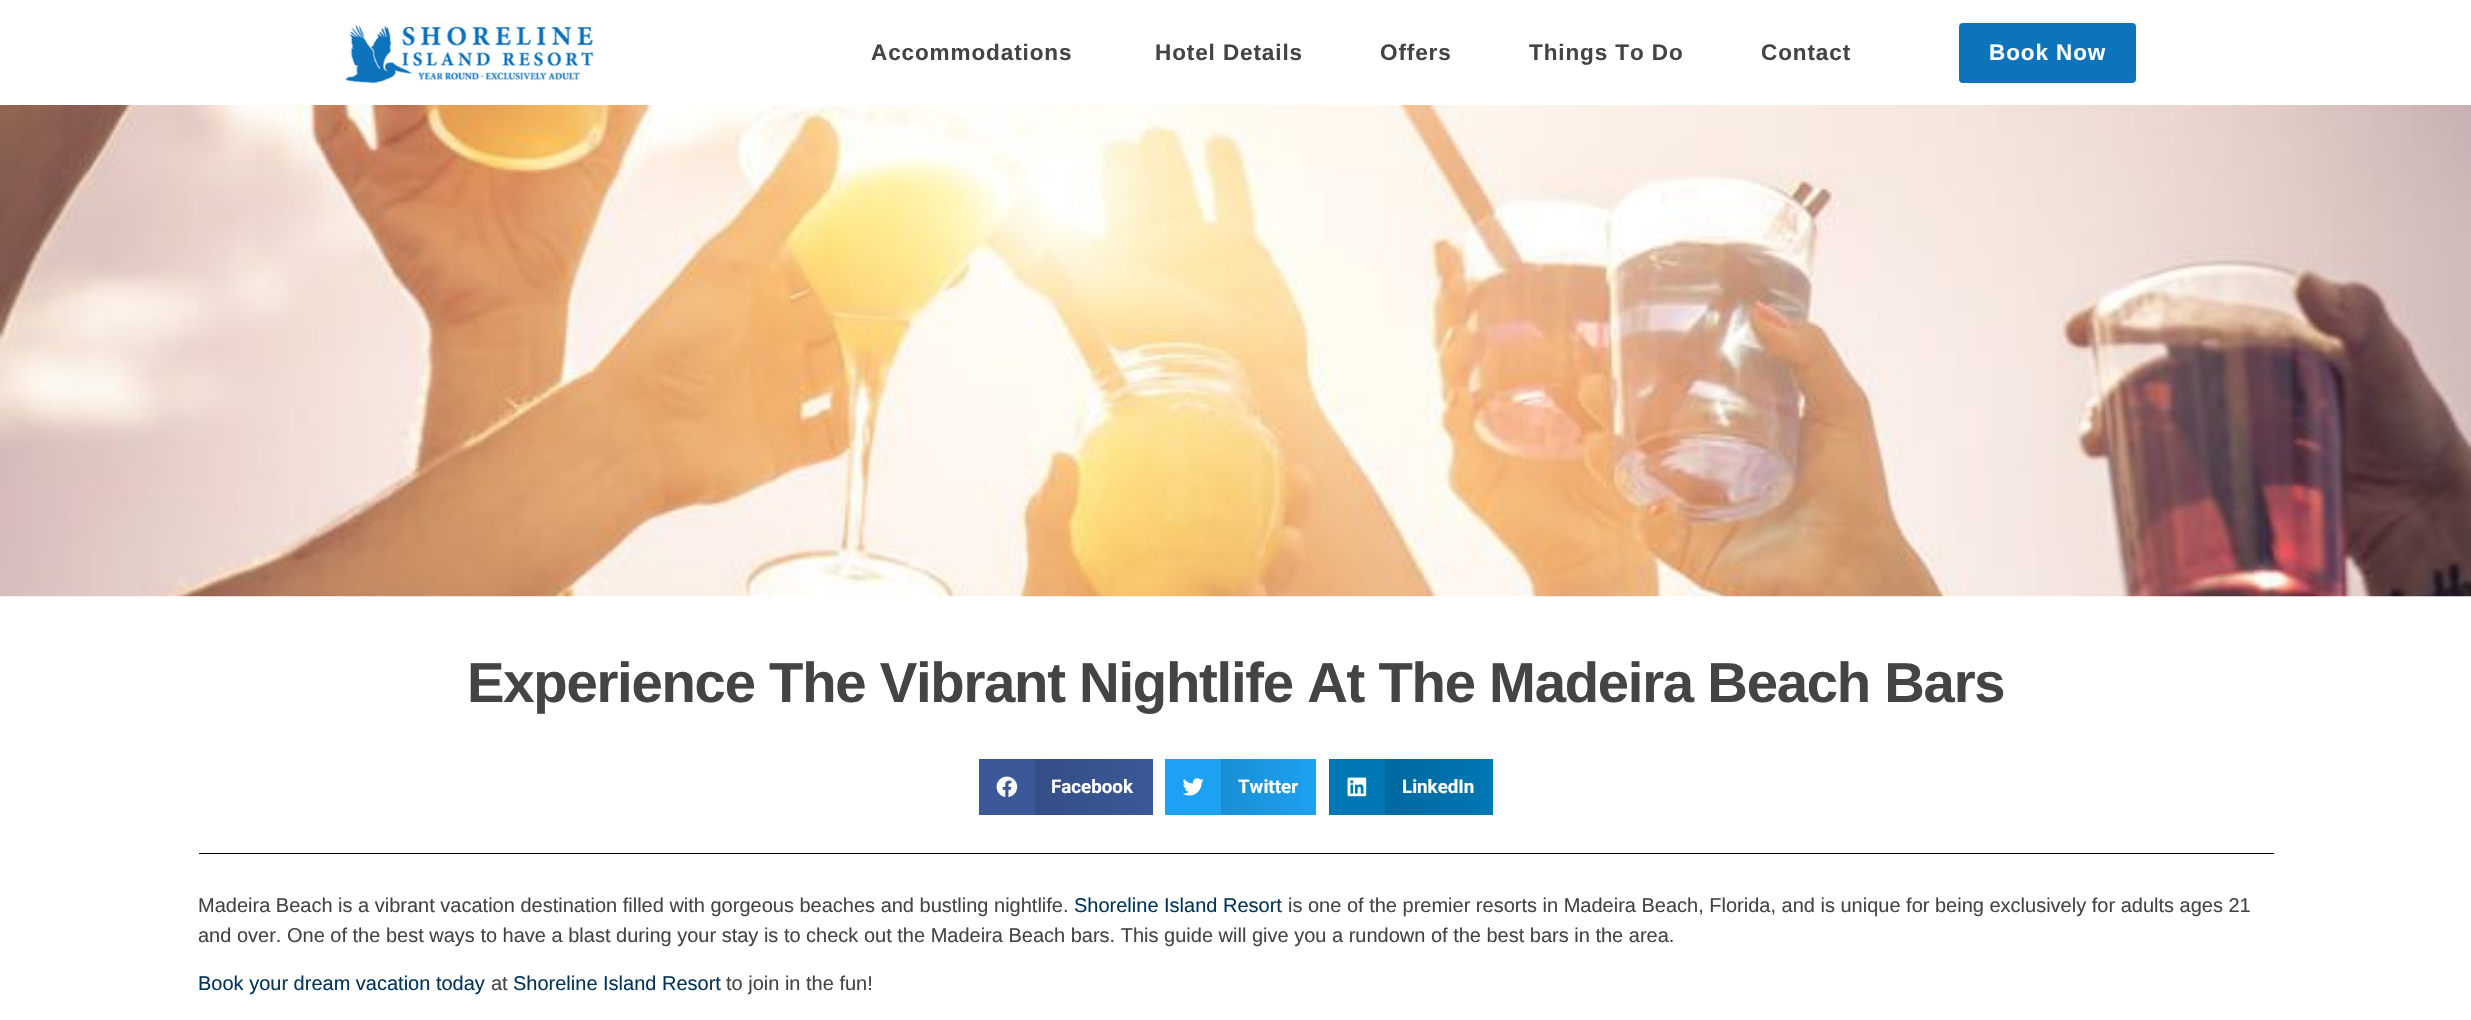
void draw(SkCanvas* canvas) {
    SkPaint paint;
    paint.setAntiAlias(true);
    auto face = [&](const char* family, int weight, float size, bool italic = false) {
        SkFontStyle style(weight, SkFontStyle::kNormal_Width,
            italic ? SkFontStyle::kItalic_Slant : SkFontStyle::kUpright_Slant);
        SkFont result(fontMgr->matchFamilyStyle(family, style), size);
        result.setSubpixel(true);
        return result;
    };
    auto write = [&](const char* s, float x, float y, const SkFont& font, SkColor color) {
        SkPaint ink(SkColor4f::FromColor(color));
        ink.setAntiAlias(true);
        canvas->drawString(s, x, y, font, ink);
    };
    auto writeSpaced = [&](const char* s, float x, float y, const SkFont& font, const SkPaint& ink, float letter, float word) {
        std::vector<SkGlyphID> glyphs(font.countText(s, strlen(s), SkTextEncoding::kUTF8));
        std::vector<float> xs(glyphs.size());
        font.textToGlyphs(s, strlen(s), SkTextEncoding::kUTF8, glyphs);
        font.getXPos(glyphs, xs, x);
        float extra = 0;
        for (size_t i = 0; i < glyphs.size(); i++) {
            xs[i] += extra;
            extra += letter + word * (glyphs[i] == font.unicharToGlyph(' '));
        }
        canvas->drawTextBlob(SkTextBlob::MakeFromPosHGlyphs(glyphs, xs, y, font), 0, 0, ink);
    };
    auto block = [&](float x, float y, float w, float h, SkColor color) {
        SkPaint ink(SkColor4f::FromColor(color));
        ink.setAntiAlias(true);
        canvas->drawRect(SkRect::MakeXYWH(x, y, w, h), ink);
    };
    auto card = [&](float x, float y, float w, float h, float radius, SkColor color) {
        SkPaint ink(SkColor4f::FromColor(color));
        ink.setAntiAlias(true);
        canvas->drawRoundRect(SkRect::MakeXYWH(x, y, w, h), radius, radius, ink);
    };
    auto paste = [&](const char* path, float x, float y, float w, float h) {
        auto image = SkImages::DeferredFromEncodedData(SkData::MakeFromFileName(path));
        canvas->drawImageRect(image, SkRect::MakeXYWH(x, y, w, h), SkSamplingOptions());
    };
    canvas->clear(SK_ColorWHITE);
    paste("pic1.png", 340, 20, 254, 64);
    auto kFont1 = face("Liberation Sans", 700, 22.5f);
    paint.setColor(SkColorSetRGB(68, 68, 68));
    writeSpaced("Accommodations", 871, 60, kFont1, paint, 0.9f, 0);
    writeSpaced("Hotel Details", 1155, 60, kFont1, paint, 0.9f, 0);
    writeSpaced("Offers", 1380, 60, kFont1, paint, 0.9f, 0);
    writeSpaced("Things To Do", 1529, 60, kFont1, paint, 0.9f, 0);
    writeSpaced("Contact", 1761, 60, kFont1, paint, 0.9f, 0);
    card(1959, 23, 177, 60, 4, SkColorSetRGB(13, 116, 188));
    paint.setColor(SK_ColorWHITE);
    writeSpaced("Book Now", 1989, 60, kFont1, paint, 0.9f, 0);
    paste("pic2.png", 0, 105, 2471, 492);
    auto kFont2 = face("Liberation Sans", 700, 56.25f);
    paint.setColor(SkColorSetRGB(68, 68, 68));
    writeSpaced("Experience The Vibrant Nightlife At The Madeira Beach Bars", 467, 702, kFont2, paint, -1.25f, 0);
    block(979, 759, 56, 56, SkColorSetRGB(59, 89, 152));
    paste("pic3.png", 996, 776, 22, 21);
    {
        const SkColor colors[] = {SkColorSetRGB(52, 78, 134), SkColorSetRGB(59, 89, 152)};
        const float stops[] = {0, 1};
        const SkPoint ends[] = {{1035, 787}, {1153, 787}};
        paint.setShader(SkGradientShader::MakeLinear(ends, colors, stops, 2, SkTileMode::kClamp));
        paint.setAlpha(255);
    }
    canvas->drawRect(SkRect::MakeXYWH(1035, 759, 118, 56), paint);
    auto kFont3 = face("Roboto", 700, 18.75f);
    write("Facebook", 1051, 793, kFont3, SK_ColorWHITE);
    block(1165, 759, 56, 56, SkColorSetRGB(29, 161, 242));
    paste("pic4.png", 1183, 778, 21, 18);
    {
        const SkColor colors[] = {SkColorSetRGB(26, 142, 213), SkColorSetRGB(29, 161, 242)};
        const float stops[] = {0, 1};
        const SkPoint ends[] = {{1221, 787}, {1316, 787}};
        paint.setShader(SkGradientShader::MakeLinear(ends, colors, stops, 2, SkTileMode::kClamp));
        paint.setAlpha(255);
    }
    canvas->drawRect(SkRect::MakeXYWH(1221, 759, 95, 56), paint);
    write("Twitter", 1238, 793, kFont3, SK_ColorWHITE);
    block(1329, 759, 56, 56, SkColorSetRGB(0, 119, 181));
    paste("pic5.png", 1347, 777, 20, 20);
    {
        const SkColor colors[] = {SkColorSetRGB(0, 105, 159), SkColorSetRGB(0, 119, 181)};
        const float stops[] = {0, 1};
        const SkPoint ends[] = {{1385, 787}, {1493, 787}};
        paint.setShader(SkGradientShader::MakeLinear(ends, colors, stops, 2, SkTileMode::kClamp));
        paint.setAlpha(255);
    }
    canvas->drawRect(SkRect::MakeXYWH(1385, 759, 108, 56), paint);
    write("LinkedIn", 1402, 793, kFont3, SK_ColorWHITE);
    block(199, 853, 2075, 1, SK_ColorBLACK);
    auto kFont4 = face("Liberation Sans", 400, 20);
    write("Madeira Beach is a vibrant vacation destination filled with gorgeous beaches and bustling nightlife.", 198, 912, kFont4, SkColorSetRGB(68, 68, 68));
    write("Shoreline Island Resort", 1074, 912, kFont4, SkColorSetRGB(2, 52, 89));
    write("is one of the premier resorts in Madeira Beach, Florida, and is unique for being exclusively for adults ages 21", 1288, 912, kFont4, SkColorSetRGB(68, 68, 68));
    write("and over. One of the best ways to have a blast during your stay is to check out the Madeira Beach bars. This guide will give you a rundown of the best bars in the area.", 198, 942, kFont4, SkColorSetRGB(68, 68, 68));
    write("Book your dream vacation today", 198, 990, kFont4, SkColorSetRGB(2, 52, 89));
    write("at", 491, 990, kFont4, SkColorSetRGB(68, 68, 68));
    write("Shoreline Island Resort", 513, 990, kFont4, SkColorSetRGB(2, 52, 89));
    write("to join in the fun!", 726, 990, kFont4, SkColorSetRGB(68, 68, 68));
}
